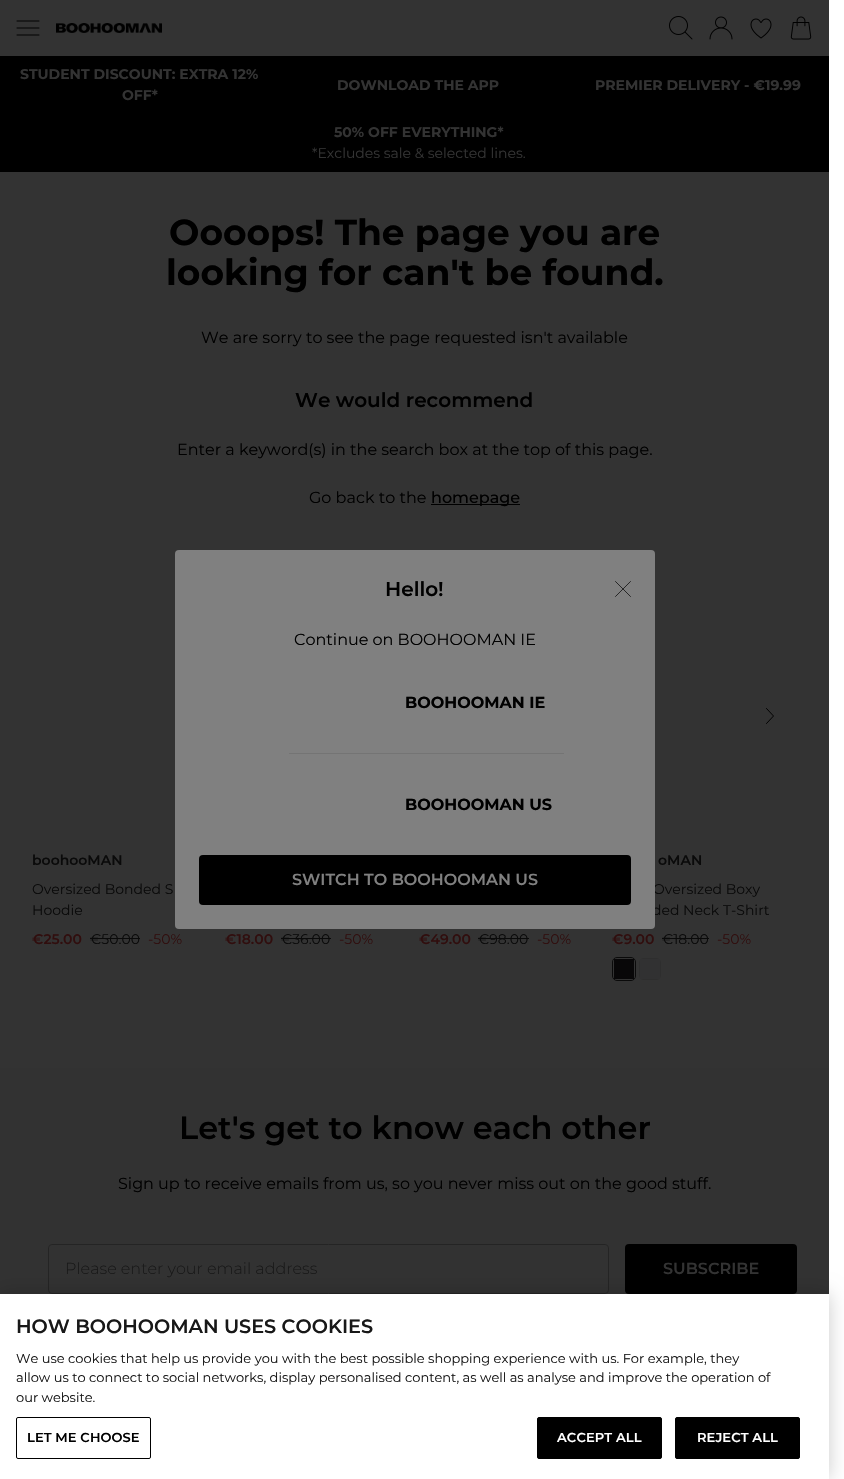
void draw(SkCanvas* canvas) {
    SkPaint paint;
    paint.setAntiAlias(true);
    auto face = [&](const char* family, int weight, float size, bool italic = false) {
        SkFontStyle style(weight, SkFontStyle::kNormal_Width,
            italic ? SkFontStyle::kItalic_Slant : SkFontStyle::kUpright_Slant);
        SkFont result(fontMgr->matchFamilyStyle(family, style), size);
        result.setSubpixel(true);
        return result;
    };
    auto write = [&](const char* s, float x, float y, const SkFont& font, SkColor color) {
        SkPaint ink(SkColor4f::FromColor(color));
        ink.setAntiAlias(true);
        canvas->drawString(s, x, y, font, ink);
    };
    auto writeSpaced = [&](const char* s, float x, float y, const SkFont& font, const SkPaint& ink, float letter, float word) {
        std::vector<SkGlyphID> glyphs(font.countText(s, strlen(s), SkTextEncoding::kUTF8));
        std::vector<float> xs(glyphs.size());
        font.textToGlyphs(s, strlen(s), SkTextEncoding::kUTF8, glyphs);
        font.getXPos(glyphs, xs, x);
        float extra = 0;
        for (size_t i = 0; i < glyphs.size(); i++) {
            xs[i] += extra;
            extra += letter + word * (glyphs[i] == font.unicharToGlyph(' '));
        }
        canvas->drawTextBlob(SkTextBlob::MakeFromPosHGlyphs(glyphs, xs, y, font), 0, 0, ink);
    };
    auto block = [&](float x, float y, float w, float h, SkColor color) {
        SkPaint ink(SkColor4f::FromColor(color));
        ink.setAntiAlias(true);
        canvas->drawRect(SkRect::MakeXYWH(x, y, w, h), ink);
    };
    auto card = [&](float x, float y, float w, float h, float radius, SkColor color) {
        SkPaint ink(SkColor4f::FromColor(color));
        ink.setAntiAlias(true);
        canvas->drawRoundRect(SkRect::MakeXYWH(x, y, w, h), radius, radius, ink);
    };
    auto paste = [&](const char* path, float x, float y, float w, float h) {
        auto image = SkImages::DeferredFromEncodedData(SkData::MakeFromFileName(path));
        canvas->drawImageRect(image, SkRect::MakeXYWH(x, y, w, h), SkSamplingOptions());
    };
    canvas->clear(SK_ColorWHITE);
    block(0, 0, 829, 1068, SkColorSetRGB(51, 51, 51));
    paint.setStyle(SkPaint::kStroke_Style);
    paint.setStrokeWidth(1);
    paint.setStrokeCap(SkPaint::kRound_Cap);
    paint.setColor(SK_ColorBLACK);
    canvas->drawPath(SkPathBuilder().moveTo(39, 28).lineTo(17, 28).moveTo(39, 35).lineTo(17, 35).moveTo(39, 21).lineTo(17, 21).detach(), paint);
    paste("pic1.png", 56, 23, 106, 10);
    paste("pic2.png", 669, 16, 24, 24);
    paste("pic3.png", 709, 16, 24, 24);
    paste("pic4.png", 750, 18, 22, 21);
    paste("pic5.png", 790, 16, 22, 24);
    block(0, 56, 829, 116, SK_ColorBLACK);
    auto kFont1 = face("Montserrat", 100, 14);
    write("STUDENT DISCOUNT: EXTRA 12%", 20, 79, kFont1, SkColorSetRGB(51, 51, 51));
    write("OFF*", 122, 100, kFont1, SkColorSetRGB(51, 51, 51));
    write("DOWNLOAD THE APP", 337, 90, kFont1, SkColorSetRGB(51, 51, 51));
    write("PREMIER DELIVERY - €19.99", 595, 90, kFont1, SkColorSetRGB(51, 51, 51));
    write("50% OFF EVERYTHING*", 334, 137, kFont1, SkColorSetRGB(51, 51, 51));
    auto kFont2 = face("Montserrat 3", 100, 14);
    write("*Excludes sale & selected lines.", 312, 158, kFont2, SkColorSetRGB(51, 51, 51));
    auto kFont3 = face("Montserrat", 100, 36);
    write("Oooops! The page you are", 169, 245, kFont3, SK_ColorBLACK);
    write("looking for can't be found.", 166, 285, kFont3, SK_ColorBLACK);
    auto kFont4 = face("Montserrat 3", 100, 16);
    write("We are sorry to see the page requested isn't available", 201, 343, kFont4, SK_ColorBLACK);
    auto kFont5 = face("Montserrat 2", 100, 20);
    write("We would recommend", 295, 407, kFont5, SK_ColorBLACK);
    write("Enter a keyword(s) in the search box at the top of this page.", 177, 455, kFont4, SK_ColorBLACK);
    write("Go back to the", 309, 503, kFont4, SK_ColorBLACK);
    block(431, 504, 89, 1, SK_ColorBLACK);
    auto kFont6 = face("Montserrat", 500, 16);
    write("homepage", 431, 503, kFont6, SK_ColorBLACK);
    canvas->drawPath(SkPathBuilder().moveTo(766.5f, 723.5f).lineTo(773.5f, 716).lineTo(766.5f, 708.5f).detach(), paint);
    auto kFont7 = face("Montserrat 2", 100, 14);
    write("boohooMAN", 32, 865, kFont7, SkColorSetRGB(10, 10, 10));
    write("Oversized Bonded S", 32, 894, kFont2, SkColorSetRGB(10, 10, 10));
    write("Hoodie", 32, 915, kFont2, SkColorSetRGB(10, 10, 10));
    write("€25.00", 32, 944, kFont7, SkColorSetRGB(48, 14, 14));
    write("€50.00", 90, 944, kFont2, SkColorSetRGB(10, 10, 10));
    block(90, 938, 50, 1, SkColorSetRGB(10, 10, 10));
    write("-50%", 148, 944, kFont2, SkColorSetRGB(48, 14, 14));
    write("€18.00", 225, 944, kFont7, SkColorSetRGB(48, 14, 14));
    write("€36.00", 281, 944, kFont2, SkColorSetRGB(10, 10, 10));
    block(281, 938, 50, 1, SkColorSetRGB(10, 10, 10));
    write("-50%", 339, 944, kFont2, SkColorSetRGB(48, 14, 14));
    write("€49.00", 419, 944, kFont7, SkColorSetRGB(48, 14, 14));
    write("€98.00", 478, 944, kFont2, SkColorSetRGB(10, 10, 10));
    block(478, 938, 51, 1, SkColorSetRGB(10, 10, 10));
    write("-50%", 537, 944, kFont2, SkColorSetRGB(48, 14, 14));
    write("oMAN", 658, 865, kFont7, SkColorSetRGB(10, 10, 10));
    write("Oversized Boxy", 653, 894, kFont2, SkColorSetRGB(10, 10, 10));
    write("ded Neck T-Shirt", 652, 915, kFont2, SkColorSetRGB(10, 10, 10));
    write("€9.00", 612, 944, kFont7, SkColorSetRGB(48, 14, 14));
    write("€18.00", 662, 944, kFont2, SkColorSetRGB(10, 10, 10));
    block(662, 938, 47, 1, SkColorSetRGB(10, 10, 10));
    write("-50%", 717, 944, kFont2, SkColorSetRGB(48, 14, 14));
    block(614, 959, 20, 20, SkColorSetRGB(8, 7, 8));
    paint.setStrokeCap(SkPaint::kButt_Cap);
    paint.setColor(SkColorSetRGB(10, 10, 10));
    canvas->drawRoundRect(SkRect::MakeXYWH(612.5f, 957.5f, 23, 23), 4.5f, 4.5f, paint);
    paint.setColor(SkColorSetRGB(46, 46, 46));
    canvas->drawRoundRect(SkRect::MakeXYWH(639.5f, 958.5f, 21, 21), 3.5f, 3.5f, paint);
    block(640, 959, 20, 20, SkColorSetRGB(49, 49, 50));
    block(0, 1068, 829, 226, SkColorSetRGB(50, 50, 50));
    auto kFont8 = face("Montserrat 2", 100, 32);
    write("Let's get to know each other", 179, 1139, kFont8, SK_ColorBLACK);
    write("Sign up to receive emails from us, so you never miss out on the good stuff.", 118, 1189, kFont4, SK_ColorBLACK);
    paint.setColor(SkColorSetRGB(36, 36, 36));
    canvas->drawRoundRect(SkRect::MakeXYWH(48.5f, 1244.5f, 560, 49), 3.5f, 3.5f, paint);
    auto kFont9 = face("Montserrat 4", 100, 16);
    write("Please enter your email address", 65, 1274, kFont9, SkColorSetRGB(24, 24, 24));
    card(625, 1244, 172, 50, 4, SK_ColorBLACK);
    auto kFont10 = face("Montserrat 2", 100, 16);
    write("SUBSCRIBE", 663, 1274, kFont10, SkColorSetRGB(51, 51, 51));
    card(175, 550, 480, 379, 4, SkColorSetRGB(128, 128, 128));
    write("Hello!", 385, 596, kFont5, SK_ColorBLACK);
    paint.setStrokeWidth(0.7f);
    paint.setStrokeCap(SkPaint::kRound_Cap);
    paint.setColor(SK_ColorBLACK);
    canvas->drawPath(SkPathBuilder().moveTo(630.5f, 581.5f).lineTo(615.5f, 596.5f).moveTo(615.5f, 581.5f).lineTo(630.5f, 596.5f).detach(), paint);
    write("Continue on BOOHOOMAN IE", 294, 645, kFont4, SK_ColorBLACK);
    auto kFont11 = face("Montserrat", 100, 16);
    write("BOOHOOMAN IE", 405, 708, kFont11, SK_ColorBLACK);
    block(289, 753, 275, 1, SkColorSetRGB(116, 116, 116));
    write("BOOHOOMAN US", 405, 810, kFont11, SK_ColorBLACK);
    card(199, 855, 432, 50, 4, SK_ColorBLACK);
    write("SWITCH TO BOOHOOMAN US", 292, 885, kFont10, SkColorSetRGB(128, 128, 128));
    paint.setStyle(SkPaint::kFill_Style);
    paint.setColor(SkColorSetARGB(51, 0, 0, 0));
    paint.setMaskFilter(SkMaskFilter::MakeBlur(kNormal_SkBlurStyle, 9));
    canvas->drawRect(SkRect::MakeXYWH(0, 1294, 829, 185), paint);
    paint.setMaskFilter(nullptr);
    block(0, 1294, 829, 185, SK_ColorWHITE);
    auto kFont12 = face("Montserrat 2", 100, 19.25f);
    write("HOW BOOHOOMAN USES COOKIES", 16, 1333, kFont12, SkColorSetRGB(24, 24, 24));
    auto kFont13 = face("Montserrat 3", 100, 13);
    write("We use cookies that help us provide you with the best possible shopping experience with us. For example, they", 16, 1363, kFont13, SkColorSetRGB(24, 24, 24));
    write("allow us to connect to social networks, display personalised content, as well as analyse and improve the operation of", 16, 1382, kFont13, SkColorSetRGB(24, 24, 24));
    write("our website.", 16, 1402, kFont13, SkColorSetRGB(24, 24, 24));
    paint.setStyle(SkPaint::kStroke_Style);
    paint.setStrokeWidth(1);
    paint.setStrokeCap(SkPaint::kButt_Cap);
    paint.setColor(SK_ColorBLACK);
    canvas->drawRoundRect(SkRect::MakeXYWH(16.5f, 1417.5f, 134, 41), 1.5f, 1.5f, paint);
    auto kFont14 = face("Montserrat 2", 100, 13);
    paint.setStyle(SkPaint::kFill_Style);
    writeSpaced("LET ME CHOOSE", 27, 1442, kFont14, paint, 0.1f, 0);
    canvas->drawRoundRect(SkRect::MakeXYWH(537.5f, 1417.5f, 124, 41), 1.5f, 1.5f, paint);
    paint.setStyle(SkPaint::kStroke_Style);
    canvas->drawRoundRect(SkRect::MakeXYWH(537.5f, 1417.5f, 124, 41), 1.5f, 1.5f, paint);
    paint.setStyle(SkPaint::kFill_Style);
    paint.setColor(SK_ColorWHITE);
    writeSpaced("ACCEPT ALL", 557, 1442, kFont14, paint, 0.1f, 0);
    paint.setColor(SK_ColorBLACK);
    canvas->drawRoundRect(SkRect::MakeXYWH(675.5f, 1417.5f, 124, 41), 1.5f, 1.5f, paint);
    paint.setStyle(SkPaint::kStroke_Style);
    canvas->drawRoundRect(SkRect::MakeXYWH(675.5f, 1417.5f, 124, 41), 1.5f, 1.5f, paint);
    paint.setStyle(SkPaint::kFill_Style);
    paint.setColor(SK_ColorWHITE);
    writeSpaced("REJECT ALL", 697, 1442, kFont14, paint, 0.1f, 0);
}
